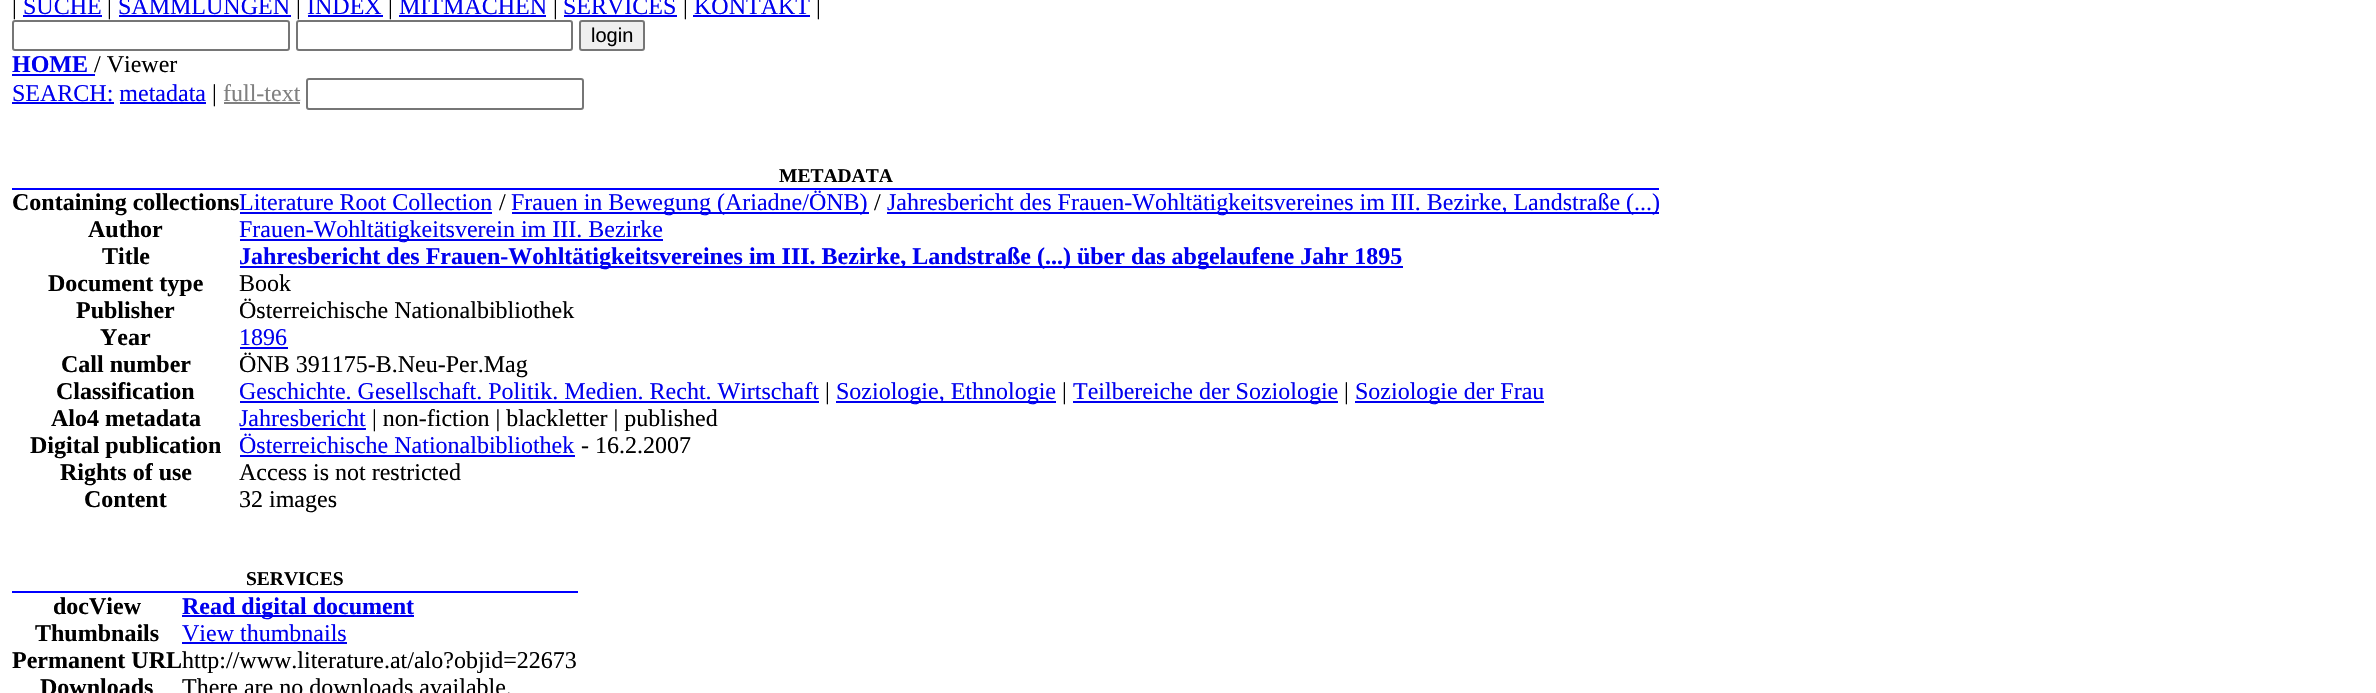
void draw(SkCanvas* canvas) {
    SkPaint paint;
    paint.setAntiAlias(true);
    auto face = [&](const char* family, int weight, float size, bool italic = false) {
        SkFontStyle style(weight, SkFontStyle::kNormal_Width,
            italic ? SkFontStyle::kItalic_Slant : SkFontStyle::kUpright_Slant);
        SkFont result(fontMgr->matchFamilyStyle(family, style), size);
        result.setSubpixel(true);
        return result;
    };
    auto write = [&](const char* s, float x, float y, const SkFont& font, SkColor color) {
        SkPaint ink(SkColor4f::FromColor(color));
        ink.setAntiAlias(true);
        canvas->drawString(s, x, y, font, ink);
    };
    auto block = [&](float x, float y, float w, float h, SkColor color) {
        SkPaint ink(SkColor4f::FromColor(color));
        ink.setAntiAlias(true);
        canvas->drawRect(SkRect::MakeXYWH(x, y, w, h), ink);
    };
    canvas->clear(SK_ColorWHITE);
    auto kFont1 = face("Liberation Serif", 400, 24);
    write("|", 12, 14, kFont1, SK_ColorBLACK);
    write("SUCHE", 23, 14, kFont1, SkColorSetRGB(0, 0, 238));
    block(23, 15, 79, 2, SkColorSetRGB(0, 0, 238));
    write("|", 107, 14, kFont1, SK_ColorBLACK);
    write("SAMMLUNGEN", 118, 14, kFont1, SkColorSetRGB(0, 0, 238));
    block(119, 15, 172, 2, SkColorSetRGB(0, 0, 238));
    write("|", 296, 14, kFont1, SK_ColorBLACK);
    write("INDEX", 307, 14, kFont1, SkColorSetRGB(0, 0, 238));
    block(308, 15, 75, 2, SkColorSetRGB(0, 0, 238));
    write("|", 388, 14, kFont1, SK_ColorBLACK);
    write("MITMACHEN", 399, 14, kFont1, SkColorSetRGB(0, 0, 238));
    block(399, 15, 147, 2, SkColorSetRGB(0, 0, 238));
    write("|", 553, 14, kFont1, SK_ColorBLACK);
    write("SERVICES", 563, 14, kFont1, SkColorSetRGB(0, 0, 238));
    block(564, 15, 113, 2, SkColorSetRGB(0, 0, 238));
    write("|", 683, 14, kFont1, SK_ColorBLACK);
    write("KONTAKT", 694, 14, kFont1, SkColorSetRGB(0, 0, 238));
    block(693, 15, 117, 2, SkColorSetRGB(0, 0, 238));
    write("|", 816, 14, kFont1, SK_ColorBLACK);
    paint.setStyle(SkPaint::kStroke_Style);
    paint.setStrokeWidth(2);
    paint.setColor(SkColorSetRGB(118, 118, 118));
    canvas->drawRoundRect(SkRect::MakeXYWH(13, 21, 276, 29), 2, 2, paint);
    canvas->drawRoundRect(SkRect::MakeXYWH(297, 21, 275, 29), 2, 2, paint);
    paint.setStyle(SkPaint::kFill_Style);
    paint.setColor(SkColorSetRGB(239, 239, 239));
    canvas->drawRoundRect(SkRect::MakeXYWH(580, 21, 64, 29), 2, 2, paint);
    paint.setStyle(SkPaint::kStroke_Style);
    paint.setColor(SkColorSetRGB(118, 118, 118));
    canvas->drawRoundRect(SkRect::MakeXYWH(580, 21, 64, 29), 2, 2, paint);
    auto kFont2 = face("Liberation Sans", 400, 20);
    write("login", 591, 42, kFont2, SK_ColorBLACK);
    auto kFont3 = face("Liberation Serif", 700, 24);
    write("HOME", 12, 72, kFont3, SkColorSetRGB(0, 0, 238));
    block(12, 74, 83, 2, SkColorSetRGB(0, 0, 238));
    write("/ Viewer", 94, 72, kFont1, SK_ColorBLACK);
    write("SEARCH: metadata", 12, 101, kFont1, SkColorSetRGB(0, 0, 238));
    block(12, 102, 102, 2, SkColorSetRGB(0, 0, 238));
    write("|", 212, 101, kFont1, SK_ColorBLACK);
    write("full-text", 223, 101, kFont1, SkColorSetRGB(128, 128, 128));
    block(224, 102, 76, 2, SkColorSetRGB(128, 128, 128));
    canvas->drawRoundRect(SkRect::MakeXYWH(307, 79, 276, 30), 2, 2, paint);
    block(120, 102, 86, 2, SkColorSetRGB(0, 0, 238));
    block(12, 188, 1647, 2, SkColorSetRGB(0, 0, 255));
    auto kFont4 = face("Liberation Serif", 700, 19.5f);
    write("METADATA", 779, 182, kFont4, SK_ColorBLACK);
    write("Containing collections", 12, 210, kFont3, SK_ColorBLACK);
    write("Literature Root Collection", 239, 210, kFont1, SkColorSetRGB(0, 0, 238));
    block(240, 212, 252, 2, SkColorSetRGB(0, 0, 238));
    write("/", 499, 210, kFont1, SK_ColorBLACK);
    block(512, 212, 357, 2, SkColorSetRGB(0, 0, 238));
    write("Frauen in Bewegung (Ariadne/ÖNB)", 511, 210, kFont1, SkColorSetRGB(0, 0, 238));
    write("/", 874, 210, kFont1, SK_ColorBLACK);
    block(887, 212, 772, 2, SkColorSetRGB(0, 0, 238));
    write("Jahresbericht des Frauen-Wohltätigkeitsvereines im III. Bezirke, Landstraße (...)", 887, 210, kFont1, SkColorSetRGB(0, 0, 238));
    write("Author", 88, 237, kFont3, SK_ColorBLACK);
    block(240, 239, 423, 2, SkColorSetRGB(0, 0, 238));
    write("Frauen-Wohltätigkeitsverein im III. Bezirke", 239, 237, kFont1, SkColorSetRGB(0, 0, 238));
    write("Title", 102, 264, kFont3, SK_ColorBLACK);
    block(240, 266, 1163, 2, SkColorSetRGB(0, 0, 238));
    write("Jahresbericht des Frauen-Wohltätigkeitsvereines im III. Bezirke, Landstraße (...) über das abgelaufene Jahr 1895", 239, 264, kFont3, SkColorSetRGB(0, 0, 238));
    write("Document type", 48, 291, kFont3, SK_ColorBLACK);
    write("Book", 239, 291, kFont1, SK_ColorBLACK);
    write("Publisher", 76, 318, kFont3, SK_ColorBLACK);
    write("Österreichische Nationalbibliothek", 239, 318, kFont1, SK_ColorBLACK);
    write("Year", 100, 345, kFont3, SK_ColorBLACK);
    write("1896", 239, 345, kFont1, SkColorSetRGB(0, 0, 238));
    block(240, 347, 48, 2, SkColorSetRGB(0, 0, 238));
    write("Call number", 61, 372, kFont3, SK_ColorBLACK);
    write("ÖNB 391175-B.Neu-Per.Mag", 239, 372, kFont1, SK_ColorBLACK);
    write("Classification", 56, 399, kFont3, SK_ColorBLACK);
    write("Geschichte. Gesellschaft. Politik. Medien. Recht. Wirtschaft", 239, 399, kFont1, SkColorSetRGB(0, 0, 238));
    block(240, 401, 579, 2, SkColorSetRGB(0, 0, 238));
    write("|", 825, 399, kFont1, SK_ColorBLACK);
    block(836, 401, 220, 2, SkColorSetRGB(0, 0, 238));
    write("Soziologie, Ethnologie", 836, 399, kFont1, SkColorSetRGB(0, 0, 238));
    write("|", 1062, 399, kFont1, SK_ColorBLACK);
    block(1073, 401, 265, 2, SkColorSetRGB(0, 0, 238));
    write("Teilbereiche der Soziologie", 1073, 399, kFont1, SkColorSetRGB(0, 0, 238));
    write("|", 1344, 399, kFont1, SK_ColorBLACK);
    block(1355, 401, 189, 2, SkColorSetRGB(0, 0, 238));
    write("Soziologie der Frau", 1355, 399, kFont1, SkColorSetRGB(0, 0, 238));
    write("Alo4 metadata", 51, 426, kFont3, SK_ColorBLACK);
    write("Jahresbericht", 239, 426, kFont1, SkColorSetRGB(0, 0, 238));
    block(240, 428, 126, 2, SkColorSetRGB(0, 0, 238));
    write("| non-fiction | blackletter | published", 372, 426, kFont1, SK_ColorBLACK);
    write("Digital publication", 30, 453, kFont3, SK_ColorBLACK);
    write("Österreichische Nationalbibliothek", 239, 453, kFont1, SkColorSetRGB(0, 0, 238));
    block(240, 455, 335, 2, SkColorSetRGB(0, 0, 238));
    write("- 16.2.2007", 581, 453, kFont1, SK_ColorBLACK);
    write("Rights of use", 60, 480, kFont3, SK_ColorBLACK);
    write("Access is not restricted", 239, 480, kFont1, SK_ColorBLACK);
    write("Content", 84, 507, kFont3, SK_ColorBLACK);
    write("32 images", 239, 507, kFont1, SK_ColorBLACK);
    block(12, 591, 566, 2, SkColorSetRGB(0, 0, 255));
    write("SERVICES", 246, 585, kFont4, SK_ColorBLACK);
    write("docView", 53, 614, kFont3, SK_ColorBLACK);
    block(182, 615, 232, 2, SkColorSetRGB(0, 0, 238));
    write("Read digital document", 182, 614, kFont3, SkColorSetRGB(0, 0, 238));
    write("Thumbnails", 35, 641, kFont3, SK_ColorBLACK);
    write("View thumbnails", 182, 641, kFont1, SkColorSetRGB(0, 0, 238));
    block(182, 642, 165, 2, SkColorSetRGB(0, 0, 238));
    write("Permanent URL", 12, 668, kFont3, SK_ColorBLACK);
    write("http://www.literature.at/alo?objid=22673", 182, 668, kFont1, SK_ColorBLACK);
    write("Downloads", 40, 695, kFont3, SK_ColorBLACK);
    write("There are no downloads available.", 182, 695, kFont1, SK_ColorBLACK);
}
